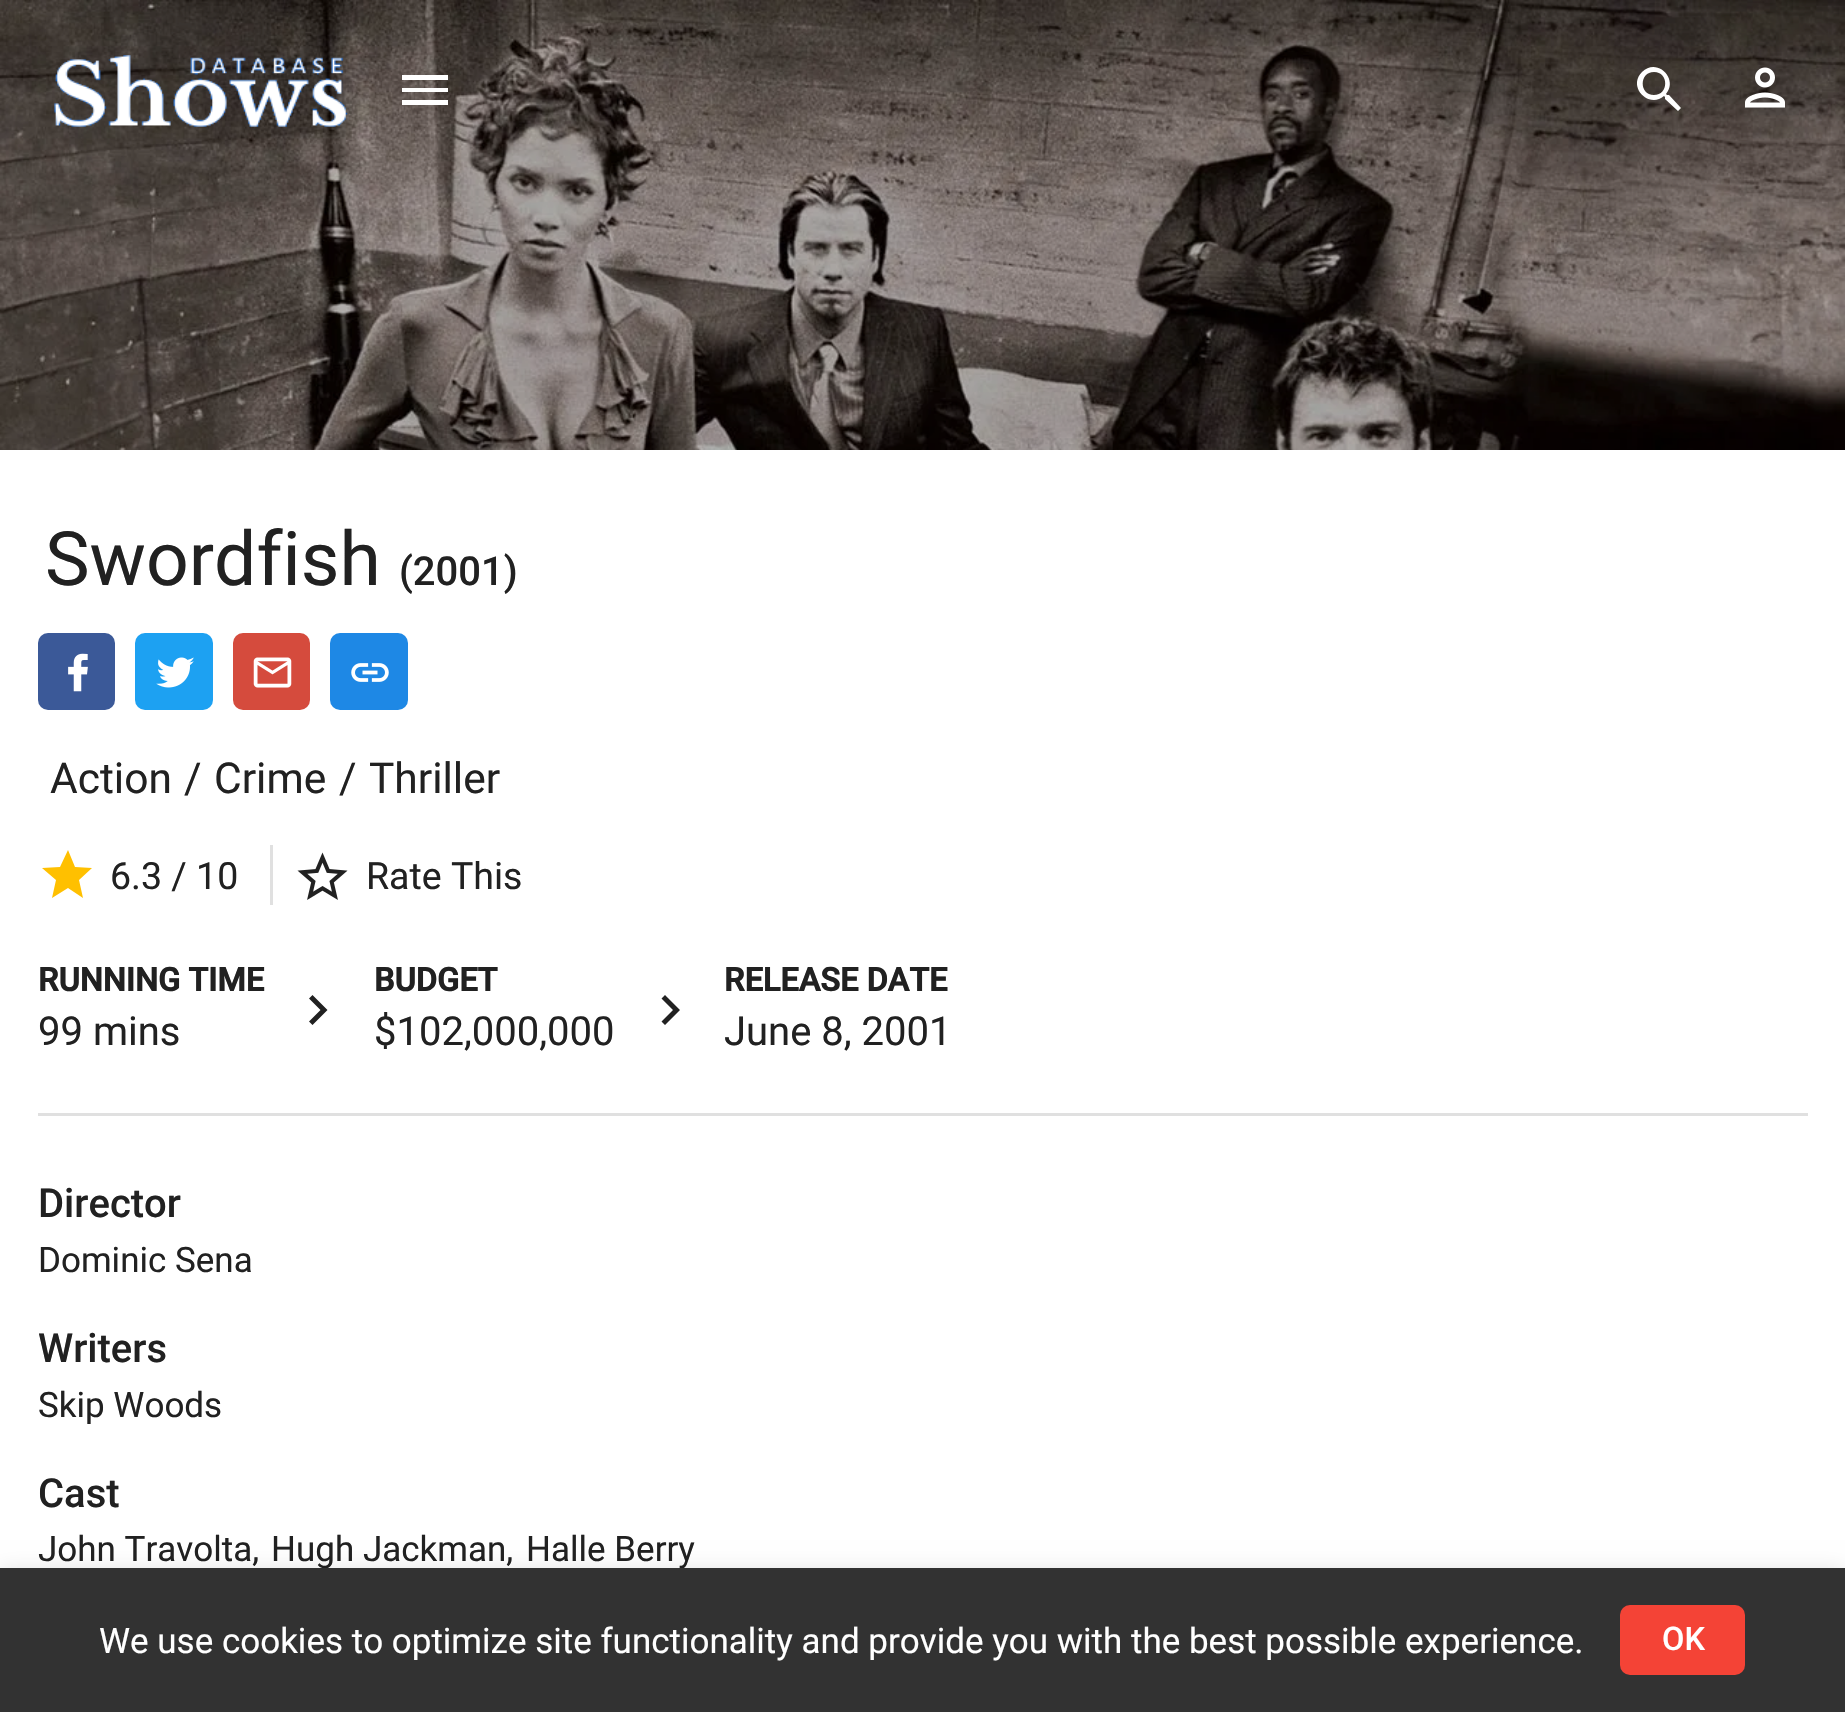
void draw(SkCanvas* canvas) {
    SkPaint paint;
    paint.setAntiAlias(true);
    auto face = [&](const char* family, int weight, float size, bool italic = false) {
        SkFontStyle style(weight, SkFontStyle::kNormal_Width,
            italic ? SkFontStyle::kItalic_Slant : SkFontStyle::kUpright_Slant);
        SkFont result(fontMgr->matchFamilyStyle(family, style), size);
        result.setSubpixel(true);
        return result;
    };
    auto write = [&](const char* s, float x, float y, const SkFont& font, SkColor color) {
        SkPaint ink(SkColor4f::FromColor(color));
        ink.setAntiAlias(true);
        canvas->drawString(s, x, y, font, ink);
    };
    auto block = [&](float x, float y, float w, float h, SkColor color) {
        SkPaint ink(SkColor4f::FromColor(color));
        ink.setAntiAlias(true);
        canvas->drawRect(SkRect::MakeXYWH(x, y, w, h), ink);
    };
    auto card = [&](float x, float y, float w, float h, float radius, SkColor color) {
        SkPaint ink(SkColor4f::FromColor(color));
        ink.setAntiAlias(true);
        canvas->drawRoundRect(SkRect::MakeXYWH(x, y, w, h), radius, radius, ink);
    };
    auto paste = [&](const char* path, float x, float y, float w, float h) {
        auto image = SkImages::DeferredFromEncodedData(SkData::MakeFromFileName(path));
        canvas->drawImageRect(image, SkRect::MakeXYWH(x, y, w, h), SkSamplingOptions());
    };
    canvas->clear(SK_ColorWHITE);
    paste("pic1.png", 0, 0, 1845, 450);
    paste("pic2.png", 54, 55, 294, 72);
    paint.setColor(SK_ColorWHITE);
    canvas->drawPath(SkPathBuilder().moveTo(402, 105).lineTo(448, 105).lineTo(448, 100).lineTo(402, 100).close().moveTo(402, 92).lineTo(448, 92).lineTo(448, 88).lineTo(402, 88).close().moveTo(402, 75).lineTo(402, 80).lineTo(448, 80).lineTo(448, 75).close().detach(), paint);
    canvas->drawPath(SkPathBuilder().moveTo(1669, 95).lineTo(1667, 95).lineTo(1666, 94).cubicTo(1679, 79, 1657, 57, 1642, 72).cubicTo(1627, 87, 1649, 109, 1664, 96).lineTo(1665, 97).lineTo(1665, 99).lineTo(1678, 111).lineTo(1681, 108).close().moveTo(1654, 95).cubicTo(1639, 95, 1639, 72, 1654, 72).cubicTo(1669, 72, 1669, 95, 1654, 95).close().detach(), paint);
    paste("pic3.png", 1745, 67, 40, 41);
    block(38, 1113, 1770, 3, SkColorSetRGB(224, 224, 224));
    auto kFont1 = face("Roboto", 400, 75);
    write("Swordfish", 45, 585, kFont1, SkColorSetRGB(33, 33, 33));
    auto kFont2 = face("Roboto", 500, 40);
    write("(2001)", 399, 585, kFont2, SkColorSetRGB(33, 33, 33));
    card(38, 633, 77, 77, 10, SkColorSetRGB(59, 89, 152));
    paste("pic4.png", 68, 653, 20, 39);
    card(135, 633, 78, 77, 10, SkColorSetRGB(29, 161, 242));
    paste("pic5.png", 156, 657, 38, 31);
    card(233, 633, 77, 77, 10, SkColorSetRGB(213, 75, 61));
    paste("pic6.png", 253, 657, 39, 31);
    card(330, 633, 78, 77, 10, SkColorSetRGB(30, 136, 229));
    paste("pic7.png", 351, 663, 38, 19);
    auto kFont3 = face("Roboto", 400, 42.5f);
    write("Action", 50, 793, kFont3, SkColorSetRGB(33, 33, 33));
    write("/", 184, 793, kFont3, SkColorSetRGB(33, 33, 33));
    write("Crime", 214, 793, kFont3, SkColorSetRGB(33, 33, 33));
    write("/", 339, 793, kFont3, SkColorSetRGB(33, 33, 33));
    write("Thriller", 369, 793, kFont3, SkColorSetRGB(33, 33, 33));
    paint.setColor(SkColorSetRGB(255, 192, 0));
    canvas->drawPath(SkPathBuilder().moveTo(68, 888).lineTo(83, 898).lineTo(79, 880).lineTo(92, 868).lineTo(75, 867).lineTo(68, 850).lineTo(60, 867).lineTo(42, 868).lineTo(56, 880).lineTo(52, 898).close().detach(), paint);
    auto kFont4 = face("Roboto", 400, 37.5f);
    write("6.3 / 10", 110, 889, kFont4, SkColorSetRGB(33, 33, 33));
    block(270, 845, 3, 60, SkColorSetRGB(224, 224, 224));
    paste("pic8.png", 297, 852, 51, 48);
    write("Rate This", 366, 889, kFont4, SkColorSetRGB(33, 33, 33));
    auto kFont5 = face("Roboto", 700, 32.5f);
    write("RUNNING TIME", 38, 991, kFont5, SkColorSetRGB(33, 33, 33));
    auto kFont6 = face("Roboto", 400, 40);
    write("99 mins", 38, 1045, kFont6, SkColorSetRGB(33, 33, 33));
    paint.setColor(SkColorSetRGB(33, 33, 33));
    canvas->drawPath(SkPathBuilder().moveTo(309, 1021.5f).lineTo(320.5f, 1010).lineTo(309, 998.5f).lineTo(312.5f, 995).lineTo(327.5f, 1010).lineTo(312.5f, 1025).close().detach(), paint);
    write("BUDGET", 374, 991, kFont5, SkColorSetRGB(33, 33, 33));
    write("$102,000,000", 374, 1045, kFont6, SkColorSetRGB(33, 33, 33));
    canvas->drawPath(SkPathBuilder().moveTo(661.5f, 1021.5f).lineTo(673, 1010).lineTo(661.5f, 998.5f).lineTo(665, 995).lineTo(680, 1010).lineTo(665, 1025).close().detach(), paint);
    write("RELEASE DATE", 724, 991, kFont5, SkColorSetRGB(33, 33, 33));
    write("June 8, 2001", 724, 1045, kFont6, SkColorSetRGB(33, 33, 33));
    write("Director", 38, 1217, kFont2, SkColorSetRGB(33, 33, 33));
    auto kFont7 = face("Roboto", 400, 35);
    write("Dominic Sena", 38, 1272, kFont7, SkColorSetRGB(33, 33, 33));
    write("Writers", 38, 1362, kFont2, SkColorSetRGB(33, 33, 33));
    write("Skip Woods", 38, 1417, kFont7, SkColorSetRGB(33, 33, 33));
    write("Cast", 38, 1507, kFont2, SkColorSetRGB(33, 33, 33));
    write("John Travolta,", 38, 1561, kFont7, SkColorSetRGB(33, 33, 33));
    write("Hugh Jackman,", 271, 1561, kFont7, SkColorSetRGB(33, 33, 33));
    write("Halle Berry", 526, 1561, kFont7, SkColorSetRGB(33, 33, 33));
    paint.setColor(SkColorSetARGB(31, 0, 0, 0));
    paint.setMaskFilter(SkMaskFilter::MakeBlur(kNormal_SkBlurStyle, 10));
    canvas->drawRect(SkRect::MakeXYWH(0, 1570, 1845, 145), paint);
    paint.setMaskFilter(nullptr);
    block(0, 1568, 1845, 144, SkColorSetRGB(50, 50, 50));
    write("We use cookies to optimize site functionality and provide you with the best possible experience.", 99, 1653, kFont7, SK_ColorWHITE);
    card(1620, 1605, 125, 70, 10, SkColorSetRGB(244, 67, 54));
    auto kFont8 = face("Roboto", 500, 32.5f);
    write("OK", 1662, 1650, kFont8, SK_ColorWHITE);
}
